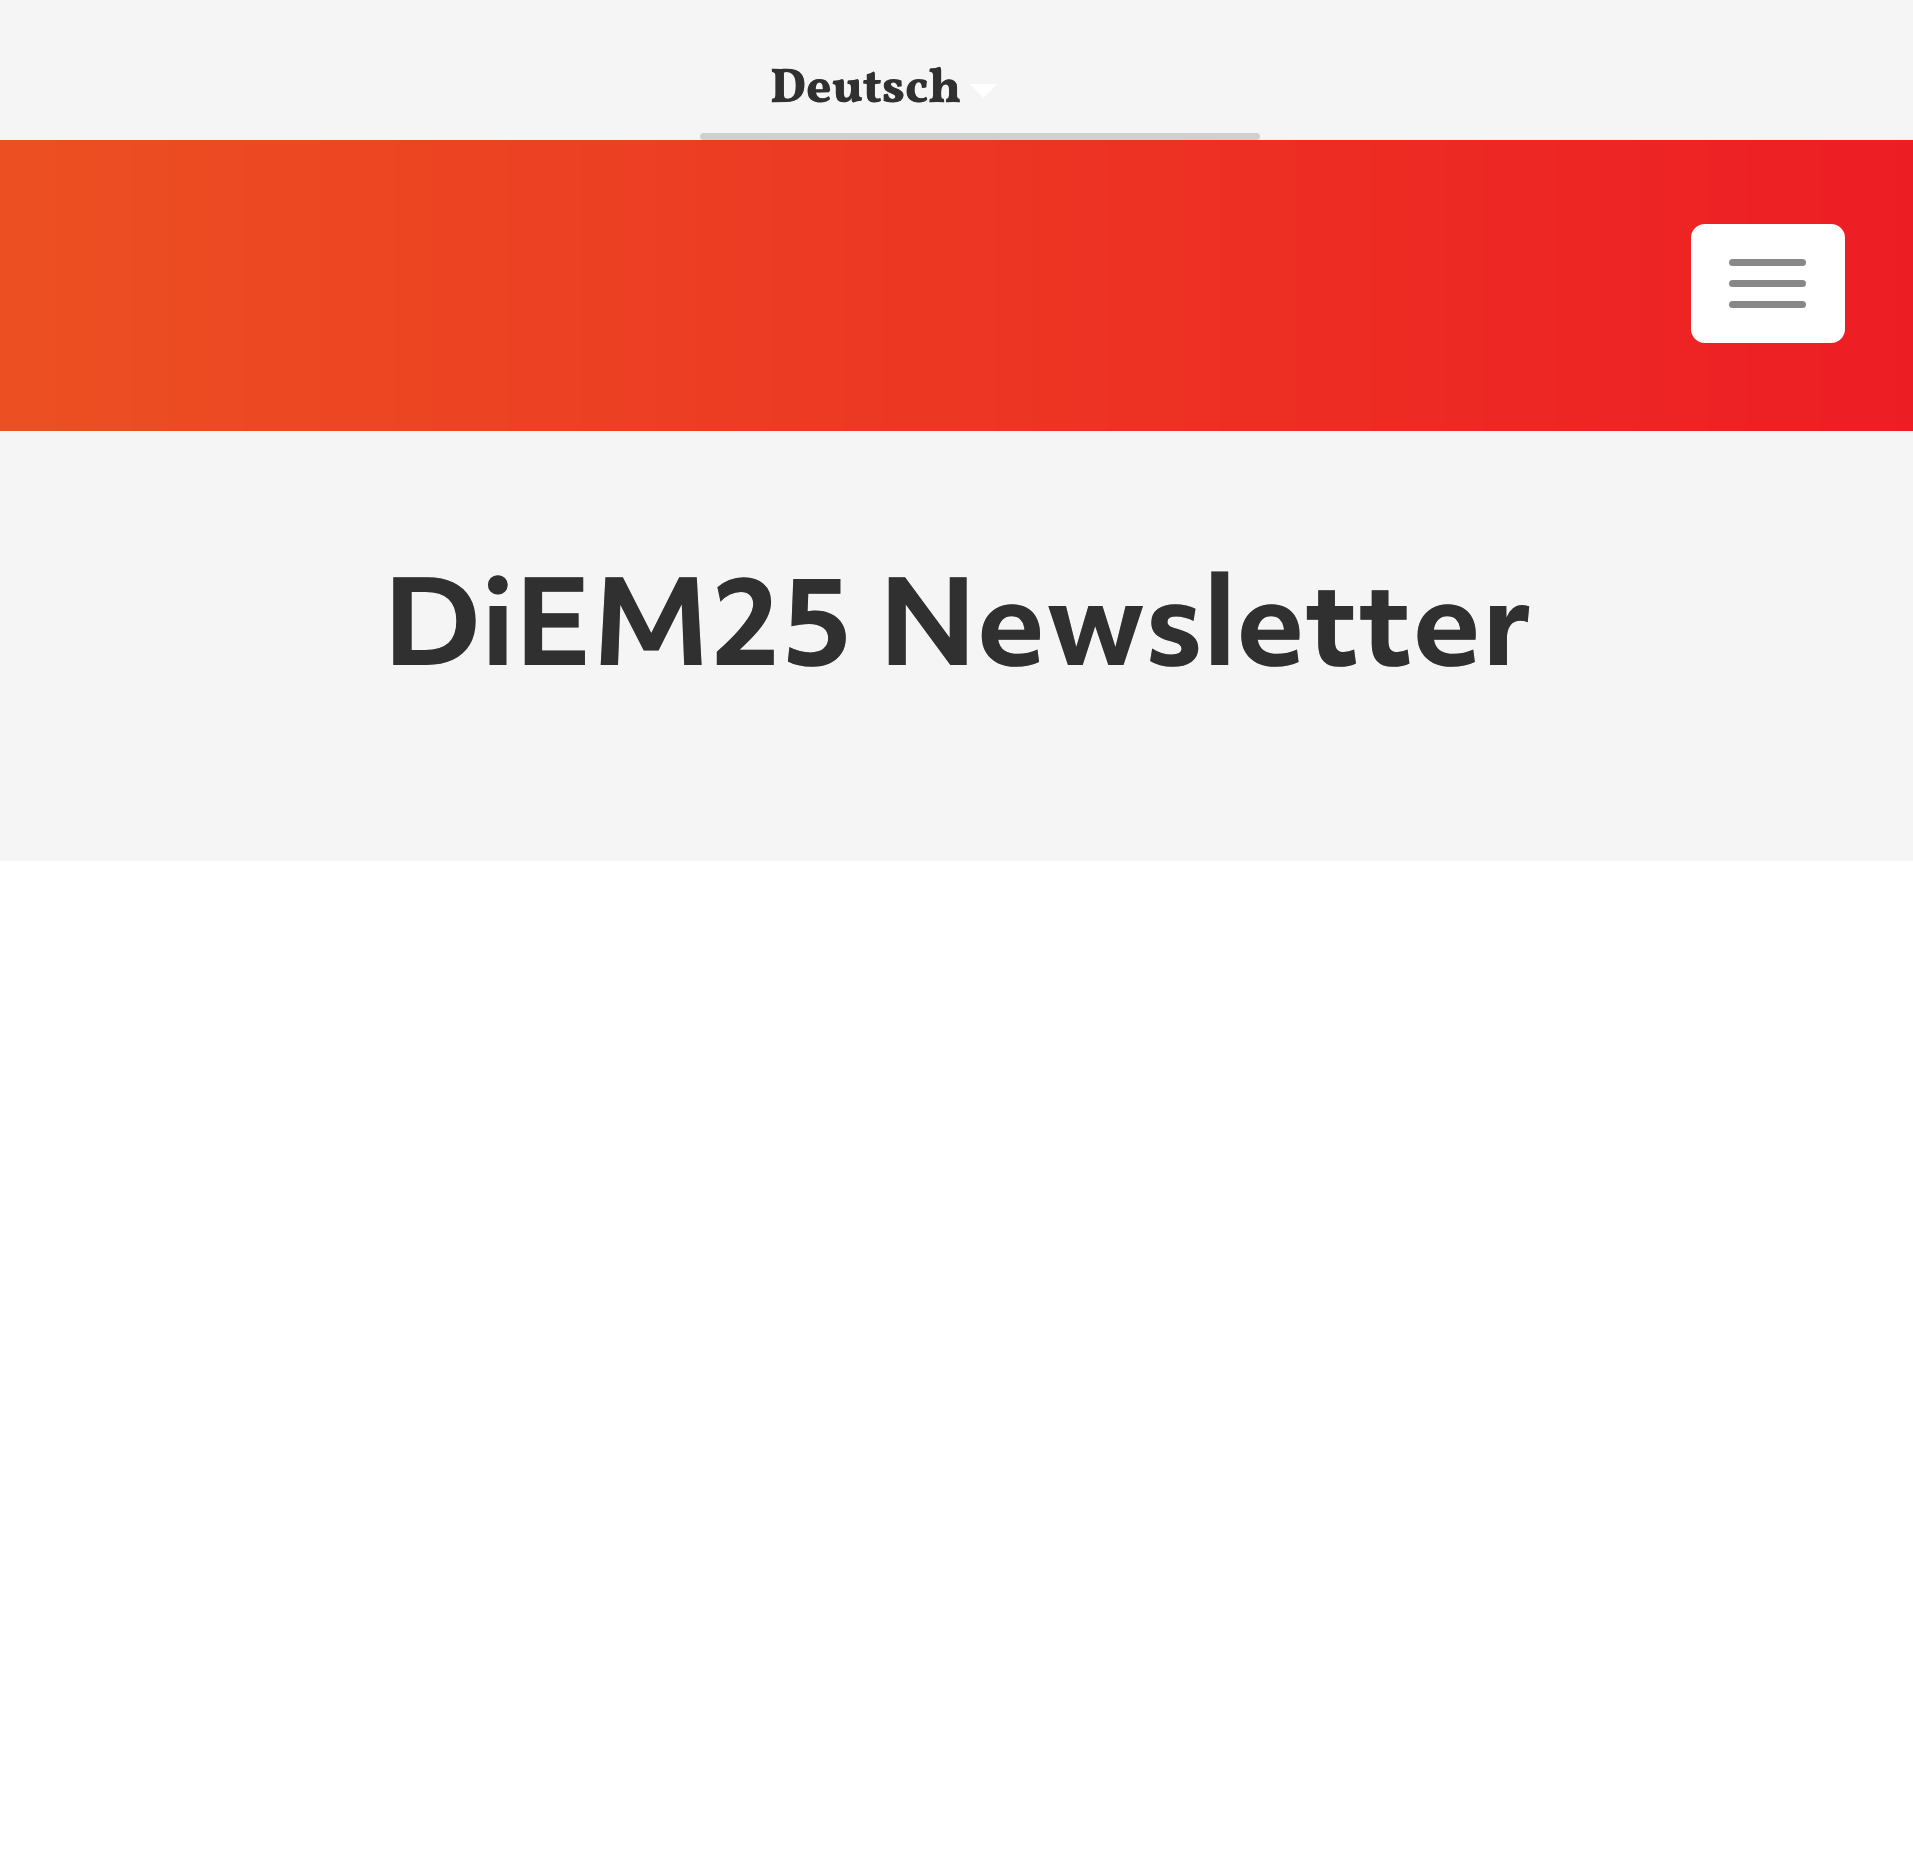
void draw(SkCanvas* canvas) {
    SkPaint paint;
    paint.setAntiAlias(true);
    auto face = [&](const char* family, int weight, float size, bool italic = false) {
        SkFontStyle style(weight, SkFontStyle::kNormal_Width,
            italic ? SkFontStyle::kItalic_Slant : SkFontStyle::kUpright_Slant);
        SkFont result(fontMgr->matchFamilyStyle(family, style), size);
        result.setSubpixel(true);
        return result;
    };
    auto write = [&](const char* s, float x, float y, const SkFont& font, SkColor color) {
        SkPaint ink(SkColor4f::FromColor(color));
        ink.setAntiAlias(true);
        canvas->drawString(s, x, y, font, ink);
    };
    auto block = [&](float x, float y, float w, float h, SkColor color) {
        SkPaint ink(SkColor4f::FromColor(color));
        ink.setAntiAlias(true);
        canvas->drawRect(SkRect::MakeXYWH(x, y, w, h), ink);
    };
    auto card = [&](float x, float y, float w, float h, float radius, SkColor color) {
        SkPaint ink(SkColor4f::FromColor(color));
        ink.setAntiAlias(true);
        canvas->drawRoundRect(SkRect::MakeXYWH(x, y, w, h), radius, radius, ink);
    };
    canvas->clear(SK_ColorWHITE);
    {
        const SkColor colors[] = {SkColorSetRGB(237, 29, 36), SkColorSetRGB(236, 80, 34)};
        const float stops[] = {0, 1};
        const SkPoint ends[] = {{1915, 215}, {0, 215}};
        paint.setShader(SkGradientShader::MakeLinear(ends, colors, stops, 2, SkTileMode::kClamp));
        paint.setAlpha(255);
    }
    canvas->drawRect(SkRect::MakeXYWH(0, 140, 1913, 291), paint);
    block(0, 0, 1913, 140, SkColorSetRGB(246, 245, 245));
    auto kFont1 = face("Vollkorn", 800, 49);
    write("Deutsch", 770, 102, kFont1, SkColorSetRGB(48, 48, 48));
    paint.setShader(nullptr);
    paint.setColor(SK_ColorWHITE);
    canvas->drawPath(SkPathBuilder().moveTo(969.5f, 84).lineTo(997.5f, 84).lineTo(983.5f, 98).close().detach(), paint);
    card(700, 133, 560, 7, 3.5f, SkColorSetRGB(209, 208, 208));
    canvas->drawRoundRect(SkRect::MakeXYWH(1693, 226, 150, 115), 12, 12, paint);
    paint.setStyle(SkPaint::kStroke_Style);
    paint.setStrokeWidth(4);
    canvas->drawRoundRect(SkRect::MakeXYWH(1693, 226, 150, 115), 12, 12, paint);
    card(1729, 259, 77, 7, 3.5f, SkColorSetRGB(136, 136, 136));
    card(1729, 280, 77, 7, 3.5f, SkColorSetRGB(136, 136, 136));
    card(1729, 301, 77, 7, 3.5f, SkColorSetRGB(136, 136, 136));
    block(0, 431, 1913, 430, SkColorSetRGB(246, 245, 245));
    auto kFont2 = face("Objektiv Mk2", 700, 115.5f);
    write("DiEM25 Newsletter", 383, 665, kFont2, SkColorSetRGB(48, 48, 48));
}
